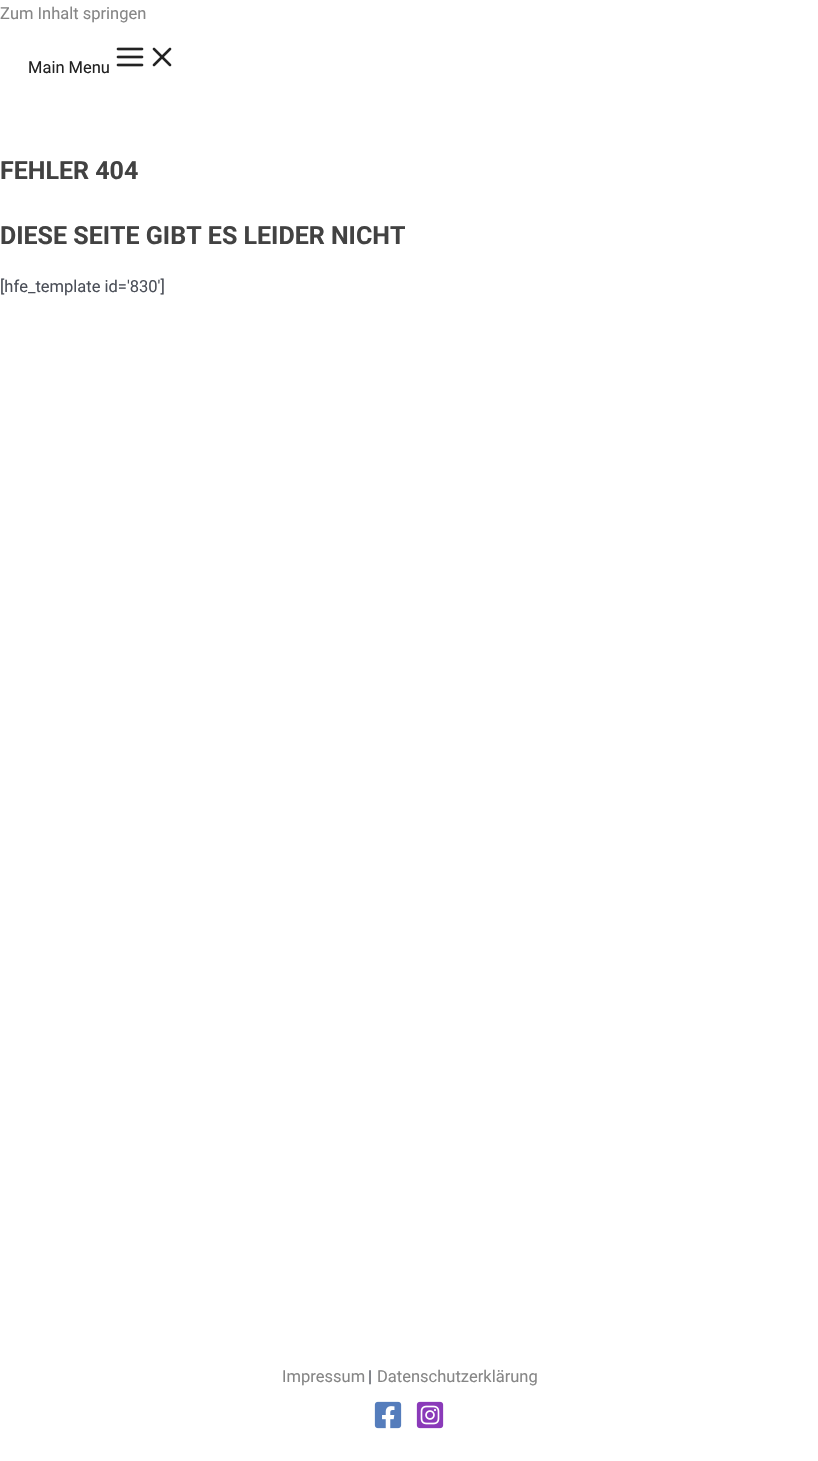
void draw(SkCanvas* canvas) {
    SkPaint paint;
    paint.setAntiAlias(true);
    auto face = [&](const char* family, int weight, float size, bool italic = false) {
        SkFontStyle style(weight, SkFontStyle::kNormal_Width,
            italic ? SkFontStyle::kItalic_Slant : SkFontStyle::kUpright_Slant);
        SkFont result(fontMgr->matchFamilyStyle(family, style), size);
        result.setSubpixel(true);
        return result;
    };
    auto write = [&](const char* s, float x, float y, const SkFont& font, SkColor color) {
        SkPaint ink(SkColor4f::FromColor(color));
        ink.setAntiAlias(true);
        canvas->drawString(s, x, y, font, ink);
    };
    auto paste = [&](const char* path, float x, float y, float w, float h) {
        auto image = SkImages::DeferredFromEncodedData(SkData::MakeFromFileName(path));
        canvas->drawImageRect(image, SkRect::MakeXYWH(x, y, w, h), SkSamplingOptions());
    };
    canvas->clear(SK_ColorWHITE);
    auto kFont1 = face("Roboto", 400, 16.5f);
    write("Zum Inhalt springen", 0, 19, kFont1, SkColorSetRGB(134, 134, 134));
    write("Main Menu", 28, 73, kFont1, SkColorSetRGB(34, 34, 34));
    paste("pic1.png", 116, 47, 28, 20);
    paste("pic2.png", 152, 47, 20, 20);
    auto kFont2 = face("Roboto", 700, 25);
    write("FEHLER 404", 0, 179, kFont2, SkColorSetRGB(66, 66, 66));
    write("DIESE SEITE GIBT ES LEIDER NICHT", 0, 244, kFont2, SkColorSetRGB(66, 66, 66));
    write("[hfe_template id='830']", 0, 292, kFont1, SkColorSetRGB(75, 79, 88));
    write("Impressum", 282, 1382, kFont1, SkColorSetRGB(134, 134, 134));
    write("|", 368, 1382, kFont1, SkColorSetRGB(75, 79, 88));
    write("Datenschutzerklärung", 377, 1382, kFont1, SkColorSetRGB(134, 134, 134));
    paste("pic3.png", 374, 1401, 28, 28);
    paste("pic4.png", 416, 1401, 28, 28);
}
